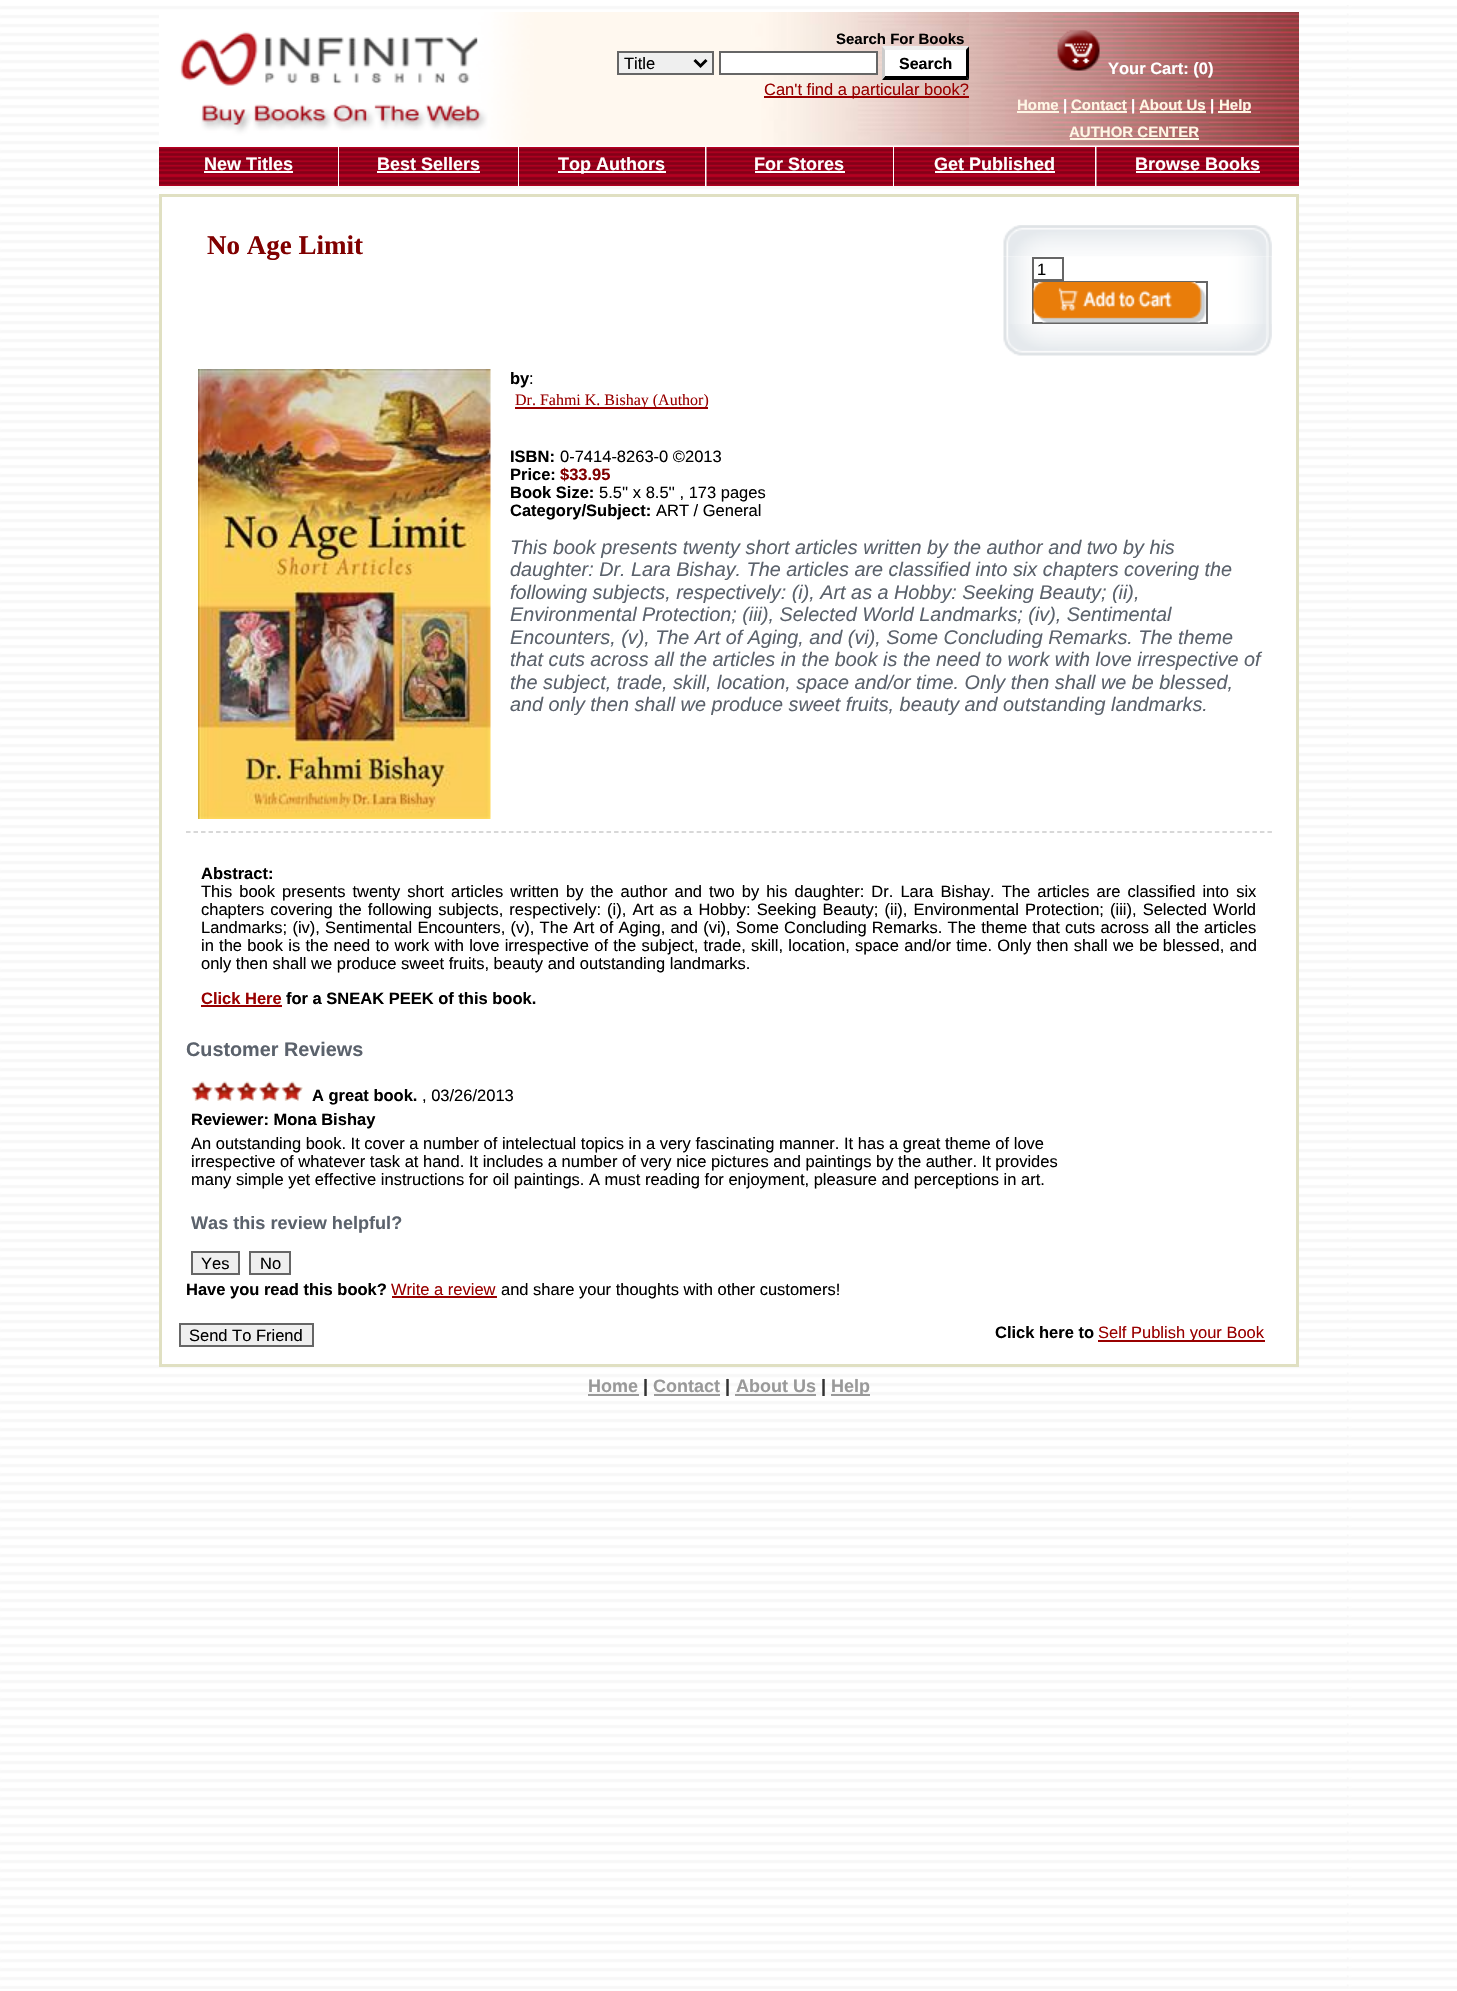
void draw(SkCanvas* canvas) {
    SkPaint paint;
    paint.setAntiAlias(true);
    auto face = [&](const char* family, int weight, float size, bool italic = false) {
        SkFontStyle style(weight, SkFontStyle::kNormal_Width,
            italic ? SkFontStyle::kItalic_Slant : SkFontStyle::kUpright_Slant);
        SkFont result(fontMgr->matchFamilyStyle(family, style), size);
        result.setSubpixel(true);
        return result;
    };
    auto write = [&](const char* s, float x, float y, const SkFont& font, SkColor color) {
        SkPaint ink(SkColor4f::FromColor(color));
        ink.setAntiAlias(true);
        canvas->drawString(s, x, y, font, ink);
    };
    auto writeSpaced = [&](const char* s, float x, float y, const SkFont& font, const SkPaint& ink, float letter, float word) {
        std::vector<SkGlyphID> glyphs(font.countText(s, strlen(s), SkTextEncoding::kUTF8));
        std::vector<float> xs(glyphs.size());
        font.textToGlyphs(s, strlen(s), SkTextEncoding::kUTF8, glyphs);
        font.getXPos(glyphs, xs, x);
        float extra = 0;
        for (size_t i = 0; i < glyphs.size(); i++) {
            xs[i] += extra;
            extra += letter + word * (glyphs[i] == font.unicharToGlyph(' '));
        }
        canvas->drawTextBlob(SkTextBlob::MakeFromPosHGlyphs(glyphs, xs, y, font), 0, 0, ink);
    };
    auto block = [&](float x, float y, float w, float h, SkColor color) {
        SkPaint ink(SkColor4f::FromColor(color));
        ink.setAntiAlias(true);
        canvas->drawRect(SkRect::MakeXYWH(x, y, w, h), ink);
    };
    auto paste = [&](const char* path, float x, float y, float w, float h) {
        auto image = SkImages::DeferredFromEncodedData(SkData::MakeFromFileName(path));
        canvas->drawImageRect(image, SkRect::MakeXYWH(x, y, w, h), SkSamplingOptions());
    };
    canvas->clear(SK_ColorWHITE);
    paste("pic1.png", 0, 5, 1457, 1984);
    paste("pic2.png", 159, 12, 375, 134);
    paste("pic3.png", 534, 12, 435, 134);
    auto kFont1 = face("Liberation Sans", 700, 15);
    write("Search For Books", 836, 44, kFont1, SK_ColorBLACK);
    paint.setColor(SkColorSetRGB(239, 239, 239));
    canvas->drawRect(SkRect::MakeXYWH(618, 52, 95, 22), paint);
    paint.setStyle(SkPaint::kStroke_Style);
    paint.setStrokeWidth(2);
    paint.setColor(SkColorSetRGB(102, 102, 102));
    canvas->drawRect(SkRect::MakeXYWH(618, 52, 95, 22), paint);
    paint.setStrokeWidth(3);
    paint.setColor(SK_ColorBLACK);
    canvas->drawPath(SkPathBuilder().moveTo(694.5f, 60).lineTo(700.5f, 66).lineTo(706.5f, 60).detach(), paint);
    auto kFont2 = face("Liberation Sans", 400, 16.5f);
    write("Title", 624, 69, kFont2, SK_ColorBLACK);
    paint.setStyle(SkPaint::kFill_Style);
    paint.setColor(SK_ColorWHITE);
    canvas->drawRect(SkRect::MakeXYWH(720, 52, 157, 22), paint);
    paint.setStyle(SkPaint::kStroke_Style);
    paint.setStrokeWidth(2);
    paint.setColor(SkColorSetRGB(102, 102, 102));
    canvas->drawRect(SkRect::MakeXYWH(720, 52, 157, 22), paint);
    block(882, 47, 87, 33, SK_ColorWHITE);
    paint.setStyle(SkPaint::kFill_Style);
    paint.setColor(SkColorSetRGB(238, 238, 238));
    canvas->drawPath(SkPathBuilder().moveTo(882, 46).lineTo(969, 46).lineTo(966, 50).lineTo(885, 50).close().detach(), paint);
    paint.setColor(SK_ColorBLACK);
    canvas->drawPath(SkPathBuilder().moveTo(969, 46.5f).lineTo(969, 79.5f).lineTo(966, 76.5f).lineTo(966, 49.5f).close().detach(), paint);
    canvas->drawPath(SkPathBuilder().moveTo(969, 80).lineTo(882, 80).lineTo(885, 76).lineTo(966, 76).close().detach(), paint);
    paint.setColor(SkColorSetRGB(204, 204, 204));
    canvas->drawPath(SkPathBuilder().moveTo(882, 79.5f).lineTo(882, 46.5f).lineTo(885, 49.5f).lineTo(885, 76.5f).close().detach(), paint);
    auto kFont3 = face("Liberation Sans", 700, 16);
    write("Search", 899, 69, kFont3, SK_ColorBLACK);
    block(764, 96, 205, 2, SkColorSetRGB(153, 0, 0));
    write("Can't find a particular book?", 764, 95, kFont2, SkColorSetRGB(153, 0, 0));
    paste("pic4.png", 969, 12, 330, 134);
    paste("pic5.png", 1057, 30, 43, 41);
    auto kFont4 = face("Liberation Sans", 700, 16.5f);
    write("Your Cart: (0)", 1108, 74, kFont4, SK_ColorWHITE);
    write("Home", 1017, 110, kFont1, SkColorSetRGB(255, 246, 229));
    block(1017, 111, 42, 2, SkColorSetRGB(255, 246, 229));
    write("|", 1063, 110, kFont1, SK_ColorWHITE);
    write("Contact", 1071, 110, kFont1, SkColorSetRGB(255, 246, 229));
    block(1071, 111, 56, 2, SkColorSetRGB(255, 246, 229));
    write("|", 1131, 110, kFont1, SK_ColorWHITE);
    write("About Us", 1139, 110, kFont1, SkColorSetRGB(255, 246, 229));
    block(1140, 111, 66, 2, SkColorSetRGB(255, 246, 229));
    write("|", 1210, 110, kFont1, SK_ColorWHITE);
    block(1218, 111, 33, 2, SkColorSetRGB(255, 246, 229));
    write("Help", 1219, 110, kFont1, SkColorSetRGB(255, 246, 229));
    write("AUTHOR CENTER", 1069, 137, kFont1, SkColorSetRGB(255, 246, 229));
    block(1070, 138, 129, 2, SkColorSetRGB(255, 246, 229));
    paste("pic6.png", 159, 147, 179, 39);
    block(338, 147, 1, 39, SK_ColorWHITE);
    auto kFont5 = face("Liberation Sans", 700, 18);
    write("New Titles", 204, 170, kFont5, SK_ColorWHITE);
    block(204, 171, 89, 2, SK_ColorWHITE);
    paste("pic6.png", 339, 147, 179, 39);
    block(518, 147, 1, 39, SK_ColorWHITE);
    write("Best Sellers", 377, 170, kFont5, SK_ColorWHITE);
    block(377, 171, 103, 2, SK_ColorWHITE);
    paste("pic7.png", 519, 147, 186, 39);
    block(705, 147, 2, 39, SK_ColorWHITE);
    block(558, 171, 108, 2, SK_ColorWHITE);
    write("Top Authors", 558, 170, kFont5, SK_ColorWHITE);
    paste("pic8.png", 706, 147, 187, 39);
    block(893, 147, 1, 39, SK_ColorWHITE);
    write("For Stores", 754, 170, kFont5, SK_ColorWHITE);
    block(755, 171, 90, 2, SK_ColorWHITE);
    paste("pic9.png", 894, 147, 201, 39);
    block(1095, 147, 2, 39, SK_ColorWHITE);
    write("Get Published", 934, 170, kFont5, SK_ColorWHITE);
    block(935, 171, 120, 2, SK_ColorWHITE);
    paste("pic10.png", 1096, 147, 203, 39);
    write("Browse Books", 1135, 170, kFont5, SK_ColorWHITE);
    block(1136, 171, 124, 2, SK_ColorWHITE);
    block(159, 194, 1140, 1173, SkColorSetRGB(224, 224, 194));
    block(162, 197, 1134, 1167, SK_ColorWHITE);
    auto kFont6 = face("Liberation Serif", 700, 27);
    write("No Age Limit", 207, 254, kFont6, SkColorSetRGB(128, 0, 0));
    paste("pic11.png", 1003, 225, 269, 32);
    paste("pic12.png", 1003, 256, 269, 68);
    block(1034, 259, 4, 20, SK_ColorWHITE);
    paint.setStyle(SkPaint::kStroke_Style);
    paint.setColor(SkColorSetRGB(102, 102, 102));
    canvas->drawRect(SkRect::MakeXYWH(1033, 258, 30, 22), paint);
    write("1", 1037, 275, kFont2, SK_ColorBLACK);
    canvas->drawRect(SkRect::MakeXYWH(1033, 282, 174, 41), paint);
    paste("pic13.png", 1033, 282, 173, 41);
    paste("pic14.png", 1003, 324, 269, 32);
    paste("pic15.png", 198, 369, 293, 450);
    write("by", 510, 384, kFont4, SK_ColorBLACK);
    write(":", 529, 384, kFont2, SK_ColorBLACK);
    block(515, 407, 193, 2, SkColorSetRGB(153, 0, 0));
    auto kFont7 = face("Liberation Serif", 400, 16);
    write("Dr. Fahmi K. Bishay (Author)", 515, 405, kFont7, SkColorSetRGB(153, 0, 0));
    write("ISBN:", 510, 462, kFont4, SK_ColorBLACK);
    write("0-7414-8263-0 ©2013", 560, 462, kFont2, SK_ColorBLACK);
    write("Price:", 510, 480, kFont4, SK_ColorBLACK);
    write("$33.95", 560, 480, kFont4, SkColorSetRGB(128, 0, 0));
    write("Book Size:", 510, 498, kFont4, SK_ColorBLACK);
    write("5.5'' x 8.5'' , 173 pages", 599, 498, kFont2, SK_ColorBLACK);
    write("Category/Subject:", 510, 516, kFont4, SK_ColorBLACK);
    write("ART / General", 656, 516, kFont2, SK_ColorBLACK);
    auto kFont8 = face("Liberation Sans", 400, 19.8f, true);
    write("This book presents twenty short articles written by the author and two by his", 510, 554, kFont8, SkColorSetRGB(91, 98, 108));
    write("daughter: Dr. Lara Bishay. The articles are classified into six chapters covering the", 510, 576, kFont8, SkColorSetRGB(91, 98, 108));
    write("following subjects, respectively: (i), Art as a Hobby: Seeking Beauty; (ii),", 510, 599, kFont8, SkColorSetRGB(91, 98, 108));
    write("Environmental Protection; (iii), Selected World Landmarks; (iv), Sentimental", 510, 621, kFont8, SkColorSetRGB(91, 98, 108));
    write("Encounters, (v), The Art of Aging, and (vi), Some Concluding Remarks. The theme", 510, 644, kFont8, SkColorSetRGB(91, 98, 108));
    write("that cuts across all the articles in the book is the need to work with love irrespective of", 510, 666, kFont8, SkColorSetRGB(91, 98, 108));
    write("the subject, trade, skill, location, space and/or time. Only then shall we be blessed,", 510, 689, kFont8, SkColorSetRGB(91, 98, 108));
    write("and only then shall we produce sweet fruits, beauty and outstanding landmarks.", 510, 711, kFont8, SkColorSetRGB(91, 98, 108));
    paint.setStrokeWidth(1.5f);
    paint.setColor(SkColorSetRGB(204, 204, 204));
    paint.setPathEffect(SkDashPathEffect::Make({{4.5f, 3.01f}}, 0));
    canvas->drawPath(SkPathBuilder().moveTo(186, 832).lineTo(1272, 832).detach(), paint);
    paint.setPathEffect(nullptr);
    write("Abstract:", 201, 879, kFont4, SK_ColorBLACK);
    paint.setStyle(SkPaint::kFill_Style);
    paint.setColor(SK_ColorBLACK);
    writeSpaced("This book presents twenty short articles written by the author and two by his daughter: Dr. Lara Bishay. The articles are classified into six", 201, 897, kFont2, paint, 0, 2.5f);
    writeSpaced("chapters covering the following subjects, respectively: (i), Art as a Hobby: Seeking Beauty; (ii), Environmental Protection; (iii), Selected World", 201, 915, kFont2, paint, 0, 1.5f);
    writeSpaced("Landmarks; (iv), Sentimental Encounters, (v), The Art of Aging, and (vi), Some Concluding Remarks. The theme that cuts across all the articles", 201, 933, kFont2, paint, 0, 0.6f);
    writeSpaced("in the book is the need to work with love irrespective of the subject, trade, skill, location, space and/or time. Only then shall we be blessed, and", 201, 951, kFont2, paint, 0, 0.65f);
    write("only then shall we produce sweet fruits, beauty and outstanding landmarks.", 201, 969, kFont2, SK_ColorBLACK);
    write("Click Here", 201, 1004, kFont4, SkColorSetRGB(153, 0, 0));
    block(201, 1005, 81, 2, SkColorSetRGB(153, 0, 0));
    write("for a SNEAK PEEK of this book.", 286, 1004, kFont4, SK_ColorBLACK);
    auto kFont9 = face("Liberation Sans", 700, 19.8f);
    write("Customer Reviews", 186, 1056, kFont9, SkColorSetRGB(91, 98, 108));
    paste("pic16.png", 191, 1081, 22, 20);
    paste("pic17.png", 214, 1081, 22, 20);
    paste("pic16.png", 236, 1081, 22, 20);
    paste("pic18.png", 259, 1081, 22, 20);
    paste("pic19.png", 281, 1081, 22, 20);
    write("A great book.", 312, 1101, kFont4, SK_ColorBLACK);
    write(", 03/26/2013", 422, 1101, kFont2, SK_ColorBLACK);
    write("Reviewer: Mona Bishay", 191, 1125, kFont4, SK_ColorBLACK);
    write("An outstanding book. It cover a number of intelectual topics in a very fascinating manner. It has a great theme of love", 191, 1149, kFont2, SK_ColorBLACK);
    write("irrespective of whatever task at hand. It includes a number of very nice pictures and paintings by the auther. It provides", 191, 1167, kFont2, SK_ColorBLACK);
    write("many simple yet effective instructions for oil paintings. A must reading for enjoyment, pleasure and perceptions in art.", 191, 1185, kFont2, SK_ColorBLACK);
    auto kFont10 = face("Liberation Sans", 700, 18.1f);
    write("Was this review helpful?", 191, 1229, kFont10, SkColorSetRGB(91, 98, 108));
    paint.setColor(SkColorSetRGB(239, 239, 239));
    canvas->drawRect(SkRect::MakeXYWH(192, 1252, 47, 22), paint);
    paint.setStyle(SkPaint::kStroke_Style);
    paint.setStrokeWidth(2);
    paint.setColor(SkColorSetRGB(102, 102, 102));
    canvas->drawRect(SkRect::MakeXYWH(192, 1252, 47, 22), paint);
    write("Yes", 201, 1269, kFont2, SK_ColorBLACK);
    paint.setStyle(SkPaint::kFill_Style);
    paint.setColor(SkColorSetRGB(239, 239, 239));
    canvas->drawRect(SkRect::MakeXYWH(250, 1252, 40, 22), paint);
    paint.setStyle(SkPaint::kStroke_Style);
    paint.setColor(SkColorSetRGB(102, 102, 102));
    canvas->drawRect(SkRect::MakeXYWH(250, 1252, 40, 22), paint);
    write("No", 260, 1269, kFont2, SK_ColorBLACK);
    write("Have you read this book?", 186, 1295, kFont4, SK_ColorBLACK);
    write("Write a review", 391, 1295, kFont2, SkColorSetRGB(153, 0, 0));
    block(392, 1296, 105, 2, SkColorSetRGB(153, 0, 0));
    write("and share your thoughts with other customers!", 501, 1295, kFont2, SK_ColorBLACK);
    paint.setStyle(SkPaint::kFill_Style);
    paint.setColor(SkColorSetRGB(239, 239, 239));
    canvas->drawRect(SkRect::MakeXYWH(180, 1324, 133, 22), paint);
    paint.setStyle(SkPaint::kStroke_Style);
    paint.setColor(SkColorSetRGB(102, 102, 102));
    canvas->drawRect(SkRect::MakeXYWH(180, 1324, 133, 22), paint);
    write("Send To Friend", 189, 1341, kFont2, SK_ColorBLACK);
    write("Click here to", 995, 1338, kFont4, SK_ColorBLACK);
    block(1098, 1340, 167, 2, SkColorSetRGB(153, 0, 0));
    write("Self Publish your Book", 1098, 1338, kFont2, SkColorSetRGB(153, 0, 0));
    write("Home", 588, 1392, kFont5, SkColorSetRGB(153, 153, 153));
    block(588, 1394, 51, 2, SkColorSetRGB(153, 153, 153));
    write("|", 643, 1392, kFont5, SkColorSetRGB(51, 51, 51));
    write("Contact", 653, 1392, kFont5, SkColorSetRGB(153, 153, 153));
    block(654, 1394, 66, 2, SkColorSetRGB(153, 153, 153));
    write("|", 725, 1392, kFont5, SkColorSetRGB(51, 51, 51));
    write("About Us", 736, 1392, kFont5, SkColorSetRGB(153, 153, 153));
    block(735, 1394, 81, 2, SkColorSetRGB(153, 153, 153));
    write("|", 821, 1392, kFont5, SkColorSetRGB(51, 51, 51));
    block(831, 1394, 39, 2, SkColorSetRGB(153, 153, 153));
    write("Help", 831, 1392, kFont5, SkColorSetRGB(153, 153, 153));
}
